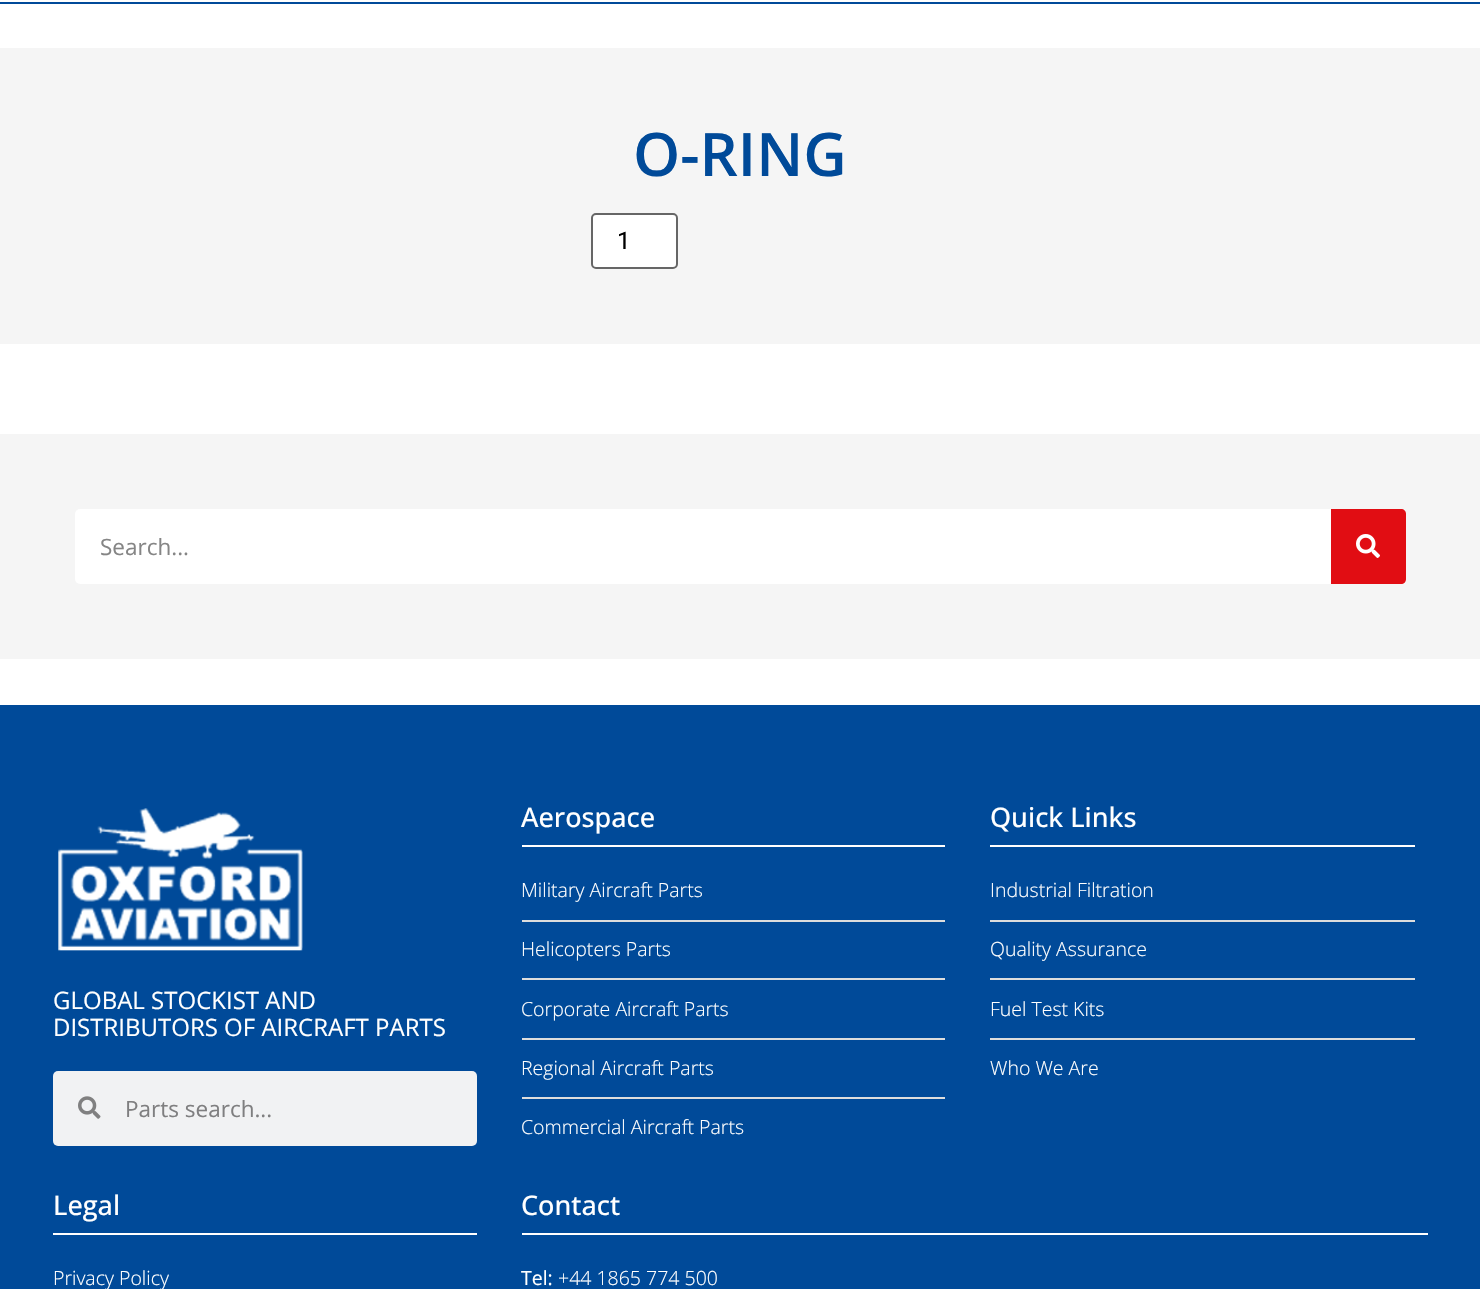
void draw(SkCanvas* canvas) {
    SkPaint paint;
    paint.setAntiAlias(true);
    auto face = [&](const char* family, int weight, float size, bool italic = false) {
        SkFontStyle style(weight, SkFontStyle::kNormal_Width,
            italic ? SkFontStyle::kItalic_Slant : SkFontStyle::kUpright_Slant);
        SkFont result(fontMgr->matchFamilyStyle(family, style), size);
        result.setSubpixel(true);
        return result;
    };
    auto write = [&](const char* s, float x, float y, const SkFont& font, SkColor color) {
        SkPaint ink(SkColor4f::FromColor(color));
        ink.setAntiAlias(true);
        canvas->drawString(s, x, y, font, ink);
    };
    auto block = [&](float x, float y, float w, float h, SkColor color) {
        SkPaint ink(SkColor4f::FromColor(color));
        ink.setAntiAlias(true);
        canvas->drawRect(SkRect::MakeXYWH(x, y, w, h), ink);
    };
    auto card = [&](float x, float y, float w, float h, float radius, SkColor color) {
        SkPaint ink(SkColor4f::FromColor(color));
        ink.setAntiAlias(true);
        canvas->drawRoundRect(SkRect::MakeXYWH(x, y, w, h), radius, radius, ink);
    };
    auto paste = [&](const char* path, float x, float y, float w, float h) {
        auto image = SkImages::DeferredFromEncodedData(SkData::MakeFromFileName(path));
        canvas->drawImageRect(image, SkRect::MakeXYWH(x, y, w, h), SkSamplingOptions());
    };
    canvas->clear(SK_ColorWHITE);
    block(0, 2, 1480, 2, SkColorSetRGB(0, 74, 153));
    block(0, 48, 1480, 296, SkColorSetRGB(245, 245, 245));
    auto kFont1 = face("Open Sans", 600, 60);
    write("O-RING", 633, 176, kFont1, SkColorSetRGB(0, 74, 153));
    paint.setColor(SK_ColorWHITE);
    canvas->drawRoundRect(SkRect::MakeXYWH(592, 214, 85, 54), 4, 4, paint);
    paint.setStyle(SkPaint::kStroke_Style);
    paint.setStrokeWidth(2);
    paint.setColor(SkColorSetRGB(102, 102, 102));
    canvas->drawRoundRect(SkRect::MakeXYWH(592, 214, 85, 54), 4, 4, paint);
    auto kFont2 = face("Roboto", 400, 24);
    write("1", 617, 249, kFont2, SK_ColorBLACK);
    block(0, 434, 1480, 225, SkColorSetRGB(245, 245, 245));
    card(75, 509, 1331, 75, 5, SK_ColorWHITE);
    auto kFont3 = face("Open Sans", 400, 22.5f);
    write("Search...", 100, 555, kFont3, SkColorSetRGB(133, 133, 133));
    paint.setStyle(SkPaint::kFill_Style);
    paint.setColor(SkColorSetRGB(225, 13, 19));
    canvas->drawPath(SkPathBuilder().moveTo(1331, 509).lineTo(1401, 509).cubicTo(1404, 509, 1406, 511, 1406, 514).lineTo(1406, 579).cubicTo(1406, 582, 1404, 584, 1401, 584).lineTo(1331, 584).close().detach(), paint);
    paste("pic1.png", 1356, 534, 24, 24);
    block(0, 705, 1480, 584, SkColorSetRGB(0, 74, 153));
    paste("pic2.png", 58, 808, 245, 143);
    auto kFont4 = face("Open Sans", 400, 24);
    write("GLOBAL STOCKIST AND", 53, 1009, kFont4, SK_ColorWHITE);
    write("DISTRIBUTORS OF AIRCRAFT PARTS", 53, 1036, kFont4, SK_ColorWHITE);
    card(53, 1071, 424, 75, 5, SkColorSetRGB(241, 242, 243));
    paste("pic3.png", 78, 1096, 23, 23);
    write("Parts search...", 125, 1117, kFont3, SkColorSetRGB(127, 127, 128));
    block(522, 845, 423, 2, SK_ColorWHITE);
    auto kFont5 = face("Open Sans", 500, 27);
    write("Aerospace", 521, 827, kFont5, SK_ColorWHITE);
    auto kFont6 = face("Open Sans", 300, 19.5f);
    write("Military Aircraft Parts", 521, 897, kFont6, SK_ColorWHITE);
    block(522, 920, 423, 2, SkColorSetRGB(221, 221, 221));
    write("Helicopters Parts", 521, 956, kFont6, SK_ColorWHITE);
    block(522, 978, 423, 2, SkColorSetRGB(221, 221, 221));
    write("Corporate Aircraft Parts", 521, 1016, kFont6, SK_ColorWHITE);
    block(522, 1038, 423, 2, SkColorSetRGB(221, 221, 221));
    write("Regional Aircraft Parts", 521, 1075, kFont6, SK_ColorWHITE);
    block(522, 1097, 423, 2, SkColorSetRGB(221, 221, 221));
    write("Commercial Aircraft Parts", 521, 1134, kFont6, SK_ColorWHITE);
    block(990, 845, 425, 2, SK_ColorWHITE);
    write("Quick Links", 990, 827, kFont5, SK_ColorWHITE);
    write("Industrial Filtration", 990, 897, kFont6, SK_ColorWHITE);
    block(990, 920, 425, 2, SkColorSetRGB(221, 221, 221));
    write("Quality Assurance", 990, 956, kFont6, SK_ColorWHITE);
    block(990, 978, 425, 2, SkColorSetRGB(221, 221, 221));
    write("Fuel Test Kits", 990, 1016, kFont6, SK_ColorWHITE);
    block(990, 1038, 425, 2, SkColorSetRGB(221, 221, 221));
    write("Who We Are", 990, 1075, kFont6, SK_ColorWHITE);
    block(53, 1233, 424, 2, SK_ColorWHITE);
    write("Legal", 53, 1215, kFont5, SK_ColorWHITE);
    write("Privacy Policy", 53, 1285, kFont6, SK_ColorWHITE);
    block(522, 1233, 906, 2, SK_ColorWHITE);
    write("Contact", 521, 1215, kFont5, SK_ColorWHITE);
    auto kFont7 = face("Open Sans", 400, 19.5f);
    write("Tel:", 521, 1285, kFont7, SK_ColorWHITE);
    write("+44 1865 774 500", 558, 1285, kFont6, SK_ColorWHITE);
}
